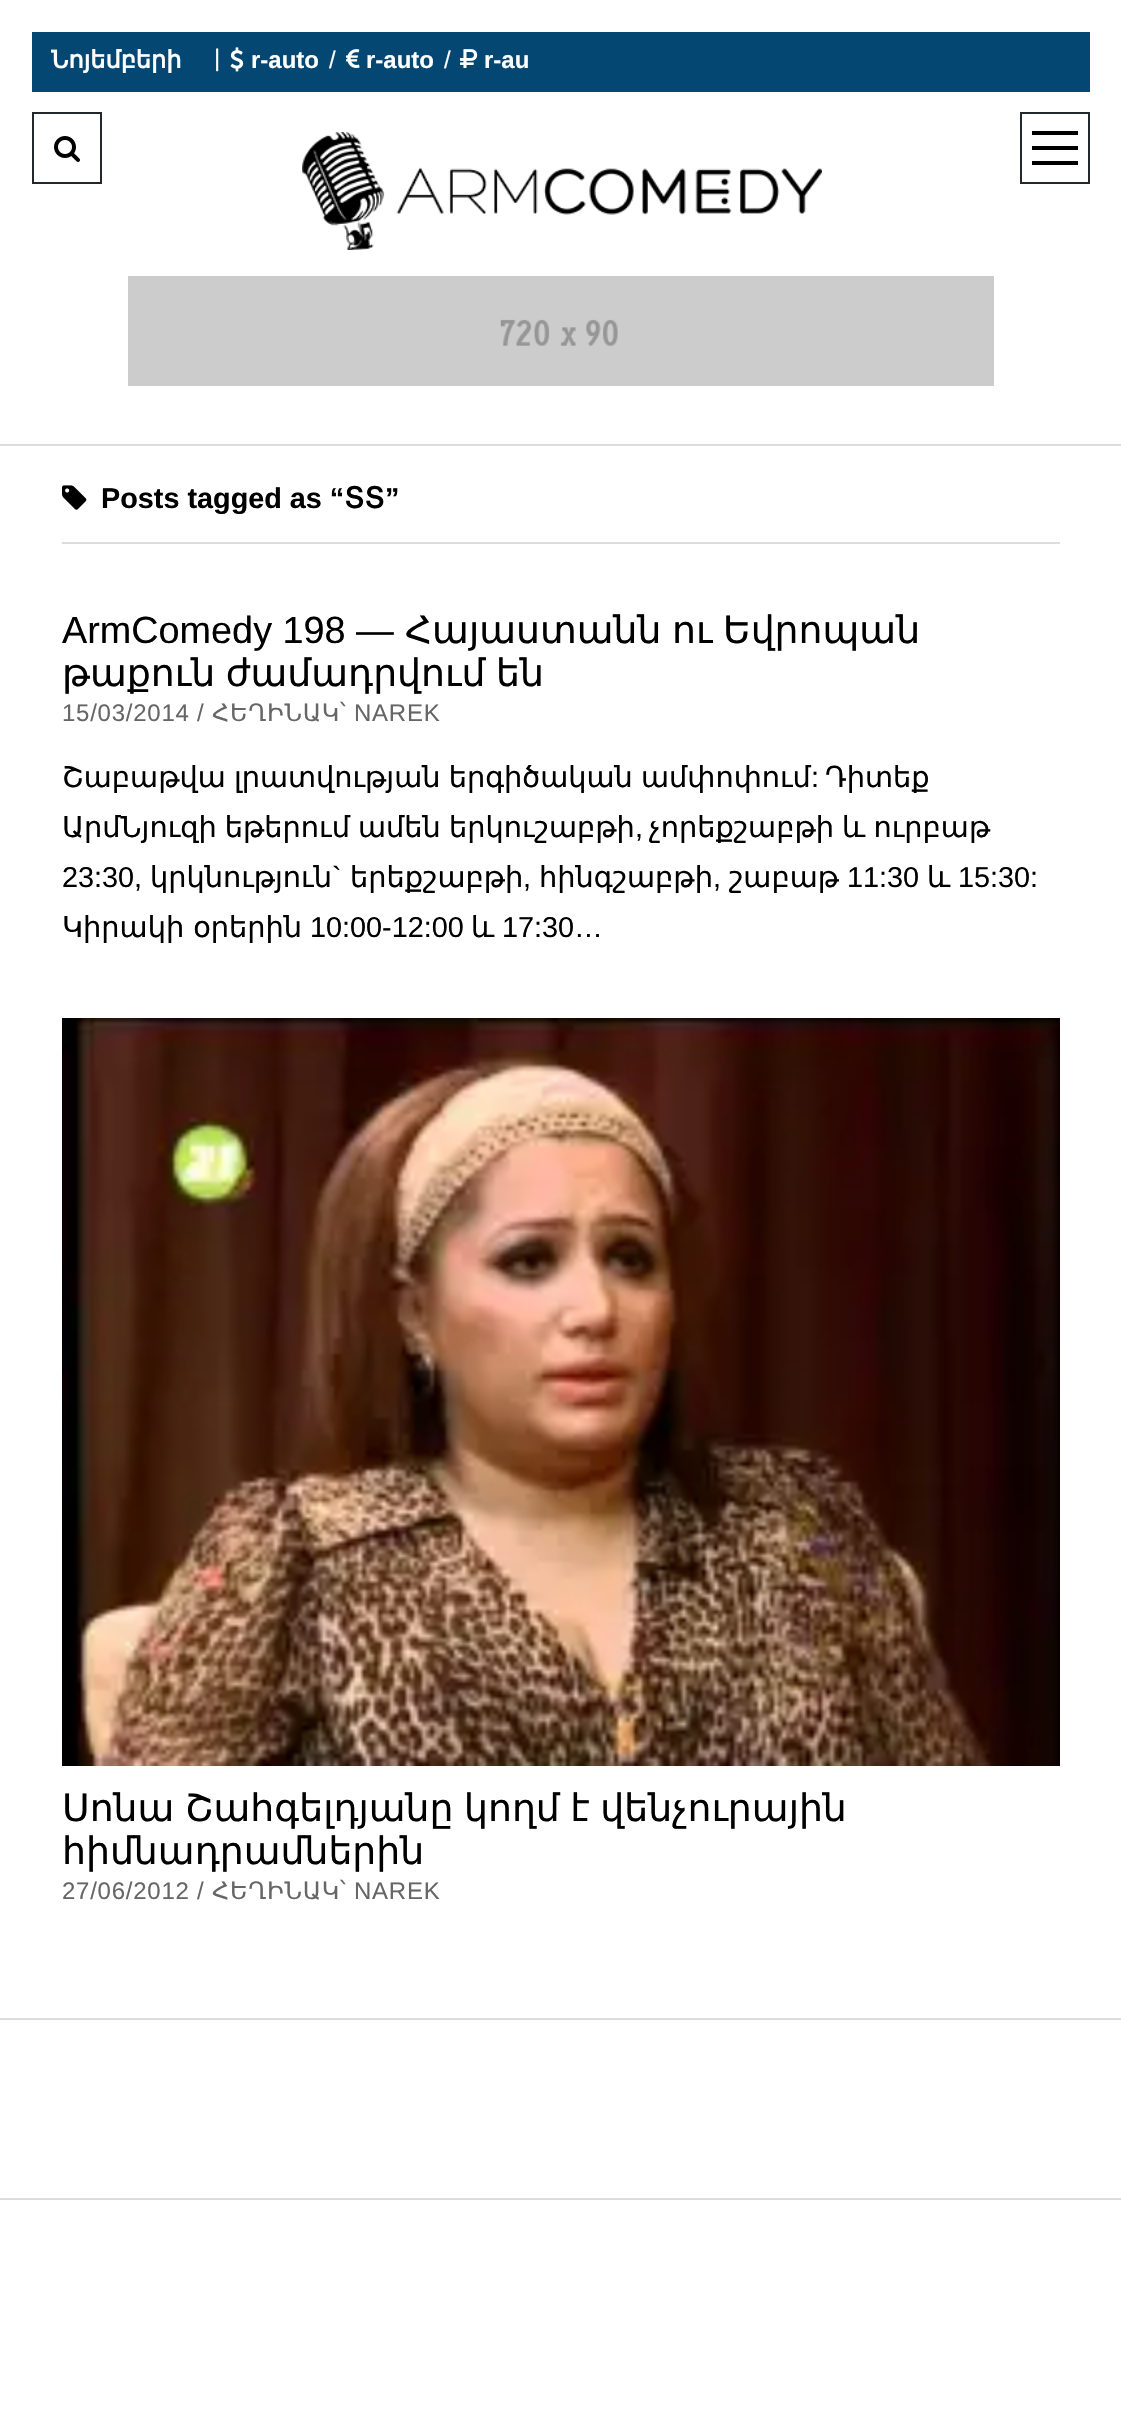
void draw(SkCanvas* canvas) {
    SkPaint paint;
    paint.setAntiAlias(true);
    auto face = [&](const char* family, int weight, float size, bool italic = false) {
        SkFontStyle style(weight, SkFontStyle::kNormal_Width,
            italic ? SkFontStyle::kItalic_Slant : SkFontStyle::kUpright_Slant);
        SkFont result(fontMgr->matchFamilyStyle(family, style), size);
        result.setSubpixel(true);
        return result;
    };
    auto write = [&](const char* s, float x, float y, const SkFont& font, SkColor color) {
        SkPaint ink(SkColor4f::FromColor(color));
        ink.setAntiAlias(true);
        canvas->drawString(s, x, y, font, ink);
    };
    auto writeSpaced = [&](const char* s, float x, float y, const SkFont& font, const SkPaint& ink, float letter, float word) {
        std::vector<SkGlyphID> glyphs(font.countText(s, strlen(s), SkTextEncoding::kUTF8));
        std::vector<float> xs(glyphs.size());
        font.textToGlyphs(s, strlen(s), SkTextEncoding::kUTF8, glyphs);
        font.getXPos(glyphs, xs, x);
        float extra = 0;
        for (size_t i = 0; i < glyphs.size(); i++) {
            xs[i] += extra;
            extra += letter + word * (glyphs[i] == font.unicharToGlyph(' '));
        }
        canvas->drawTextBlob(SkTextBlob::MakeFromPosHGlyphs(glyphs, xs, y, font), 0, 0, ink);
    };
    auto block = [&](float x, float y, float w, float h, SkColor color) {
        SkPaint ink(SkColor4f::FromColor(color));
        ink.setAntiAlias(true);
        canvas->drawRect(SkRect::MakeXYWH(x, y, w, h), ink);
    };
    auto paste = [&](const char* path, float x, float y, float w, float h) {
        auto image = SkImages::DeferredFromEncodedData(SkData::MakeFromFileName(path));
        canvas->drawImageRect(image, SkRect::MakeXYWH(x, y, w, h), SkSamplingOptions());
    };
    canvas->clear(SK_ColorWHITE);
    block(0, 444, 1121, 2, SkColorSetRGB(220, 220, 220));
    block(32, 32, 1058, 60, SkColorSetRGB(5, 71, 115));
    auto kFont1 = face("DejaVu Sans", 700, 24);
    write("Նոյեմբերի", 51, 68, kFont1, SK_ColorWHITE);
    auto kFont2 = face("Liberation Sans", 400, 24);
    write("|", 214, 66, kFont2, SK_ColorWHITE);
    paste("pic1.png", 230, 47, 14, 25);
    auto kFont3 = face("Liberation Sans", 700, 24);
    write("r-auto", 251, 68, kFont3, SK_ColorWHITE);
    write("/", 329, 68, kFont2, SK_ColorWHITE);
    paste("pic2.png", 346, 49, 14, 19);
    write("r-auto", 366, 68, kFont3, SK_ColorWHITE);
    write("/", 444, 68, kFont2, SK_ColorWHITE);
    paste("pic3.png", 460, 49, 18, 19);
    write("r-au", 484, 68, kFont3, SK_ColorWHITE);
    paint.setStyle(SkPaint::kStroke_Style);
    paint.setStrokeWidth(2);
    paint.setColor(SkColorSetRGB(35, 40, 45));
    canvas->drawRect(SkRect::MakeXYWH(33, 113, 68, 70), paint);
    paste("pic4.png", 54, 136, 26, 26);
    paste("pic5.png", 302, 132, 520, 118);
    paste("pic6.png", 128, 276, 866, 110);
    canvas->drawRect(SkRect::MakeXYWH(1021, 113, 68, 70), paint);
    block(1032, 131, 46, 4, SK_ColorBLACK);
    block(1032, 146, 46, 4, SK_ColorBLACK);
    block(1032, 161, 46, 4, SK_ColorBLACK);
    block(62, 542, 998, 2, SkColorSetRGB(220, 220, 220));
    paste("pic7.png", 62, 485, 25, 25);
    auto kFont4 = face("Liberation Sans", 700, 28.8f);
    write("Posts tagged as “", 101, 508, kFont4, SK_ColorBLACK);
    auto kFont5 = face("DejaVu Sans", 700, 28.8f);
    write("ՏՏ", 344, 508, kFont5, SK_ColorBLACK);
    write("”", 385, 508, kFont4, SK_ColorBLACK);
    auto kFont6 = face("Liberation Sans", 400, 37.8f);
    write("ArmComedy 198 —", 62, 643, kFont6, SK_ColorBLACK);
    auto kFont7 = face("DejaVu Sans", 400, 37.8f);
    write("Հայաստանն", 405, 643, kFont7, SK_ColorBLACK);
    write("ու", 672, 643, kFont7, SK_ColorBLACK);
    write("Եվրոպան", 723, 643, kFont7, SK_ColorBLACK);
    paint.setStyle(SkPaint::kFill_Style);
    paint.setColor(SK_ColorBLACK);
    writeSpaced("թաքուն ժամադրվում են", 62, 686, kFont7, paint, 0, -1.5f);
    paint.setColor(SkColorSetRGB(102, 102, 102));
    writeSpaced("15/03/2014 /", 62, 721, kFont2, paint, 0.75f, 0);
    auto kFont8 = face("DejaVu Sans", 400, 24);
    writeSpaced("ՀԵՂԻՆԱԿ՝", 212, 721, kFont8, paint, 0.75f, 0);
    writeSpaced("NAREK", 354, 721, kFont2, paint, 0.75f, 0);
    auto kFont9 = face("DejaVu Sans", 400, 28.8f);
    paint.setColor(SK_ColorBLACK);
    writeSpaced("Շաբաթվա լրատվության երգիծական ամփոփում", 62, 787, kFont9, paint, 0, -1);
    auto kFont10 = face("Liberation Sans", 400, 28.8f);
    write(":", 811, 787, kFont10, SK_ColorBLACK);
    write("Դիտեք", 825, 787, kFont9, SK_ColorBLACK);
    writeSpaced("ԱրմՆյուզի եթերում ամեն երկուշաբթի", 62, 837, kFont9, paint, 0, -1);
    write(",", 635, 837, kFont10, SK_ColorBLACK);
    writeSpaced("չորեքշաբթի և ուրբաթ", 649, 837, kFont9, paint, 0, -1);
    write("23:30,", 62, 887, kFont10, SK_ColorBLACK);
    write("կրկնություն", 150, 887, kFont9, SK_ColorBLACK);
    write("`", 332, 887, kFont10, SK_ColorBLACK);
    write("երեքշաբթի", 350, 887, kFont9, SK_ColorBLACK);
    write(",", 523, 887, kFont10, SK_ColorBLACK);
    write("հինգշաբթի", 539, 887, kFont9, SK_ColorBLACK);
    write(",", 713, 887, kFont10, SK_ColorBLACK);
    write("շաբաթ", 729, 887, kFont9, SK_ColorBLACK);
    write("11:30", 847, 887, kFont10, SK_ColorBLACK);
    write("և", 927, 887, kFont9, SK_ColorBLACK);
    write("15:30:", 958, 887, kFont10, SK_ColorBLACK);
    write("Կիրակի օրերին", 62, 937, kFont9, SK_ColorBLACK);
    write("10:00-12:00", 310, 937, kFont10, SK_ColorBLACK);
    write("և", 471, 937, kFont9, SK_ColorBLACK);
    write("17:30…", 502, 937, kFont10, SK_ColorBLACK);
    paste("pic8.png", 62, 1018, 998, 748);
    writeSpaced("Սոնա Շահգելդյանը կողմ է վենչուրային", 62, 1821, kFont7, paint, 0, -1.5f);
    write("հիմնադրամներին", 62, 1864, kFont7, SK_ColorBLACK);
    paint.setColor(SkColorSetRGB(102, 102, 102));
    writeSpaced("27/06/2012 /", 62, 1899, kFont2, paint, 0.75f, 0);
    writeSpaced("ՀԵՂԻՆԱԿ՝", 212, 1899, kFont8, paint, 0.75f, 0);
    writeSpaced("NAREK", 354, 1899, kFont2, paint, 0.75f, 0);
    block(0, 2018, 1121, 2, SkColorSetRGB(220, 220, 220));
    block(0, 2198, 1121, 2, SkColorSetRGB(220, 220, 220));
}
